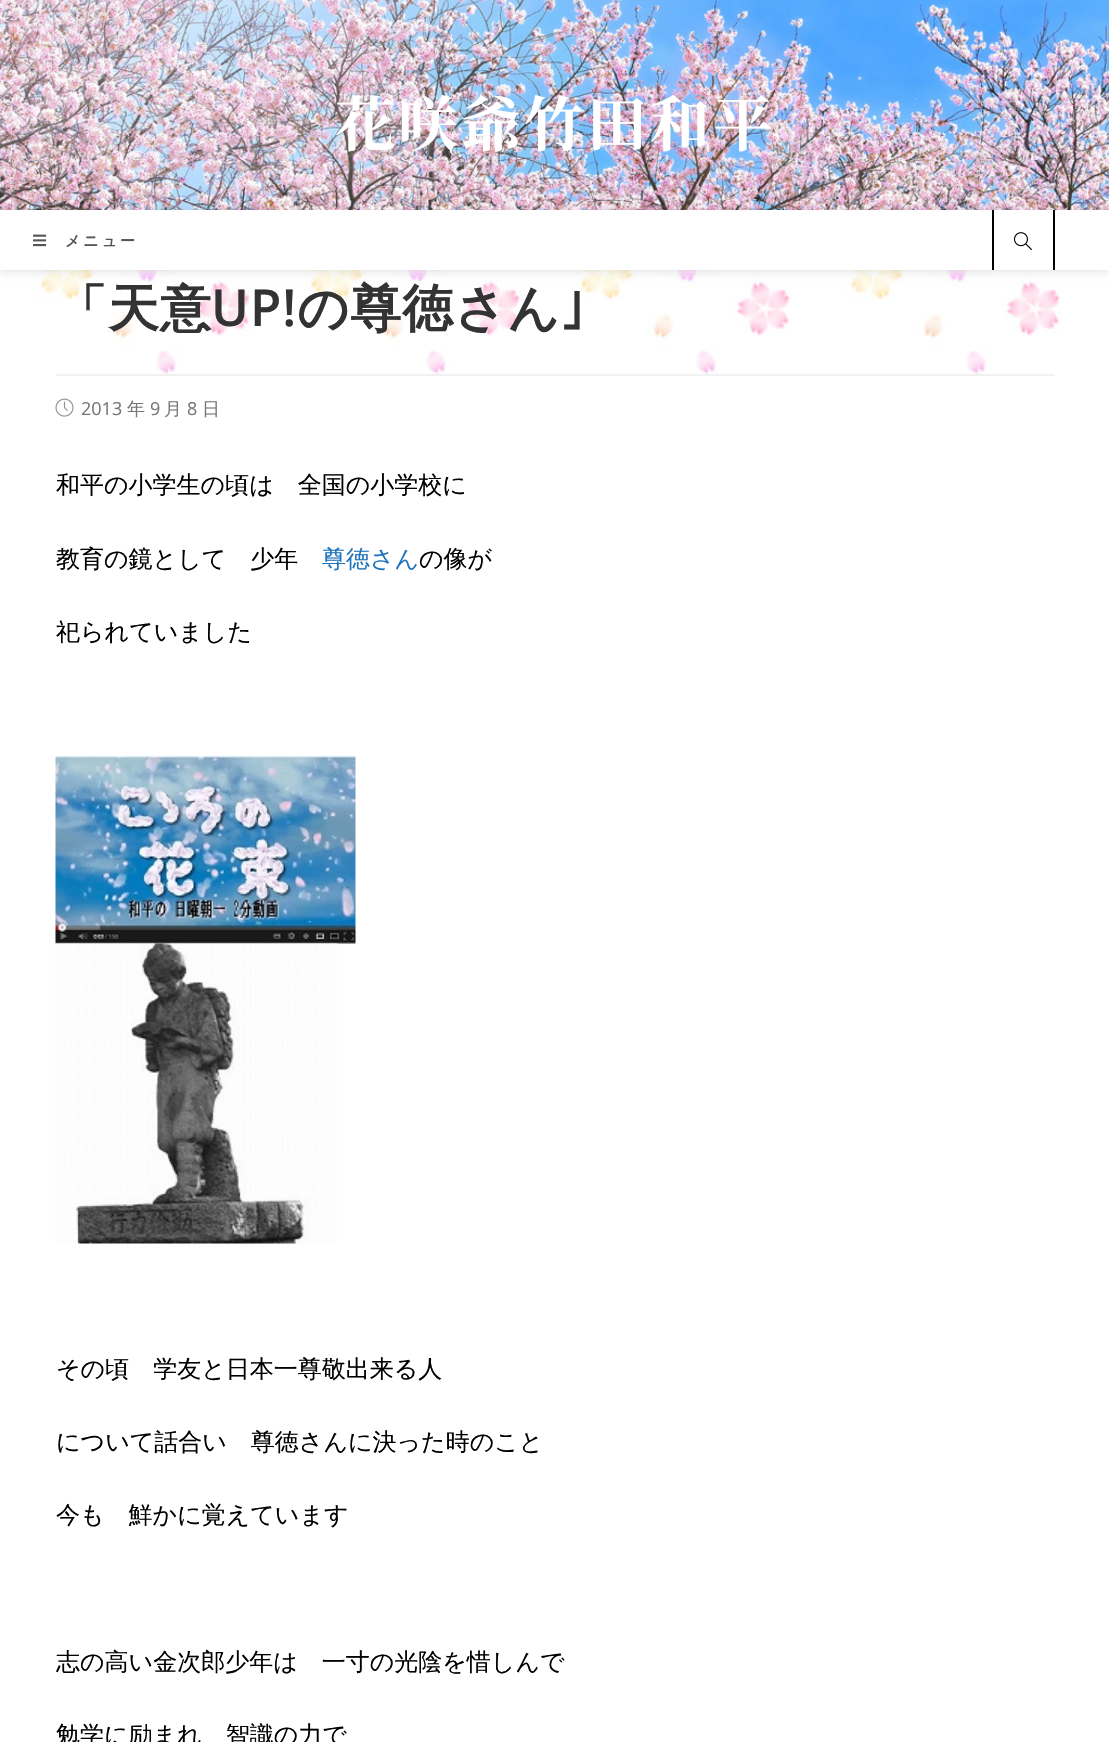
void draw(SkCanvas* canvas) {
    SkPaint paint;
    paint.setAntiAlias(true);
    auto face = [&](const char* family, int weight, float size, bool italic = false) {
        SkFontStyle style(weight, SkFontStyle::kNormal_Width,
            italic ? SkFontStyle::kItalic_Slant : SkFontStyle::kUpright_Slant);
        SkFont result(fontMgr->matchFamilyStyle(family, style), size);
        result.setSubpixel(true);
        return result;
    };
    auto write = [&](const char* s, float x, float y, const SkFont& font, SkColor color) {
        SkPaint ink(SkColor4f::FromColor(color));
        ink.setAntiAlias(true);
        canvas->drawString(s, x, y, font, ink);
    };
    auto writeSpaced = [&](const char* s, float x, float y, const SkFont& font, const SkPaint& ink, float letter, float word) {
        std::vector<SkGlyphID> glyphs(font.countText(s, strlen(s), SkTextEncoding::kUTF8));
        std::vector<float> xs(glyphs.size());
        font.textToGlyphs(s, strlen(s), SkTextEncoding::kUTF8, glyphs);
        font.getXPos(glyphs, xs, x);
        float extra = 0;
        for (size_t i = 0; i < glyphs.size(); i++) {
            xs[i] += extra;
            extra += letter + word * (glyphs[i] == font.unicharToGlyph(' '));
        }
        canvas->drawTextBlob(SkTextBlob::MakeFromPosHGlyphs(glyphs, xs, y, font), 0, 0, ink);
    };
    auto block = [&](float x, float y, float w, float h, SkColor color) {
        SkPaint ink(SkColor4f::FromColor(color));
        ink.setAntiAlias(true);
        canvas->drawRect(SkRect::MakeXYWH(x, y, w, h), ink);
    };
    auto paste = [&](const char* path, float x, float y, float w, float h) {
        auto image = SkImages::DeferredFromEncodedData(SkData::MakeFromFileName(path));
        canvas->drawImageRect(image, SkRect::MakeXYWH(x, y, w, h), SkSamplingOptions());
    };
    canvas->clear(SK_ColorWHITE);
    paste("pic1.png", 26, 270, 1083, 105);
    paste("pic2.png", 0, 0, 1109, 210);
    auto kFont1 = face("Noto Serif JP", 700, 60);
    paint.setColor(SK_ColorWHITE);
    writeSpaced("花咲爺竹田和平", 335, 146, kFont1, paint, 3, 0);
    paint.setColor(SkColorSetARGB(26, 0, 0, 0));
    paint.setMaskFilter(SkMaskFilter::MakeBlur(kNormal_SkBlurStyle, 4));
    canvas->drawRect(SkRect::MakeXYWH(0, 212, 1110, 60), paint);
    paint.setMaskFilter(nullptr);
    block(0, 210, 1109, 60, SK_ColorWHITE);
    paste("pic3.png", 33, 234, 14, 13);
    auto kFont2 = face("WenQuanYi Zen Hei", 700, 15);
    paint.setColor(SkColorSetRGB(85, 85, 85));
    writeSpaced("メニュー", 65, 246, kFont2, paint, 3, 0);
    block(1053, 210, 2, 60, SK_ColorBLACK);
    block(992, 210, 2, 60, SK_ColorBLACK);
    paste("pic4.png", 1014, 232, 18, 19);
    block(56, 374, 999, 2, SkColorSetRGB(241, 241, 241));
    auto kFont3 = face("WenQuanYi Zen Hei", 700, 51);
    paint.setColor(SkColorSetRGB(51, 51, 51));
    writeSpaced("「天意", 56, 326, kFont3, paint, 1, 0);
    auto kFont4 = face("Open Sans", 600, 51);
    writeSpaced("UP!", 211, 326, kFont4, paint, 1, 0);
    writeSpaced("の尊徳さん", 297, 326, kFont3, paint, 1, 0);
    auto kFont5 = face("IPAPGothic", 700, 51);
    writeSpaced("｣", 560, 326, kFont5, paint, 1, 0);
    paste("pic5.png", 55, 398, 19, 19);
    auto kFont6 = face("Open Sans", 400, 18);
    write("2013", 81, 415, kFont6, SkColorSetRGB(119, 119, 119));
    auto kFont7 = face("WenQuanYi Zen Hei", 500, 18);
    write("年", 127, 415, kFont7, SkColorSetRGB(119, 119, 119));
    write("9", 150, 415, kFont6, SkColorSetRGB(119, 119, 119));
    write("月", 164, 415, kFont7, SkColorSetRGB(119, 119, 119));
    write("8", 187, 415, kFont6, SkColorSetRGB(119, 119, 119));
    write("日", 202, 415, kFont7, SkColorSetRGB(119, 119, 119));
    auto kFont8 = face("WenQuanYi Zen Hei", 500, 24);
    write("和平の小学生の頃は　全国の小学校に", 56, 493, kFont8, SK_ColorBLACK);
    write("教育の鏡として　少年", 56, 567, kFont8, SK_ColorBLACK);
    write("尊徳さん", 322, 567, kFont8, SkColorSetRGB(30, 115, 190));
    write("の像が", 419, 567, kFont8, SK_ColorBLACK);
    write("祀られていました", 56, 640, kFont8, SK_ColorBLACK);
    paste("pic6.png", 55, 756, 301, 188);
    paste("pic7.png", 55, 943, 283, 301);
    write("その頃　学友と日本一尊敬出来る人", 56, 1377, kFont8, SK_ColorBLACK);
    write("について話合い　尊徳さんに決った時のこと", 56, 1450, kFont8, SK_ColorBLACK);
    write("今も　鮮かに覚えています", 56, 1523, kFont8, SK_ColorBLACK);
    write("志の高い金次郎少年は　一寸の光陰を惜しんで", 56, 1670, kFont8, SK_ColorBLACK);
    write("勉学に励まれ　智識の力で", 56, 1743, kFont8, SK_ColorBLACK);
}
